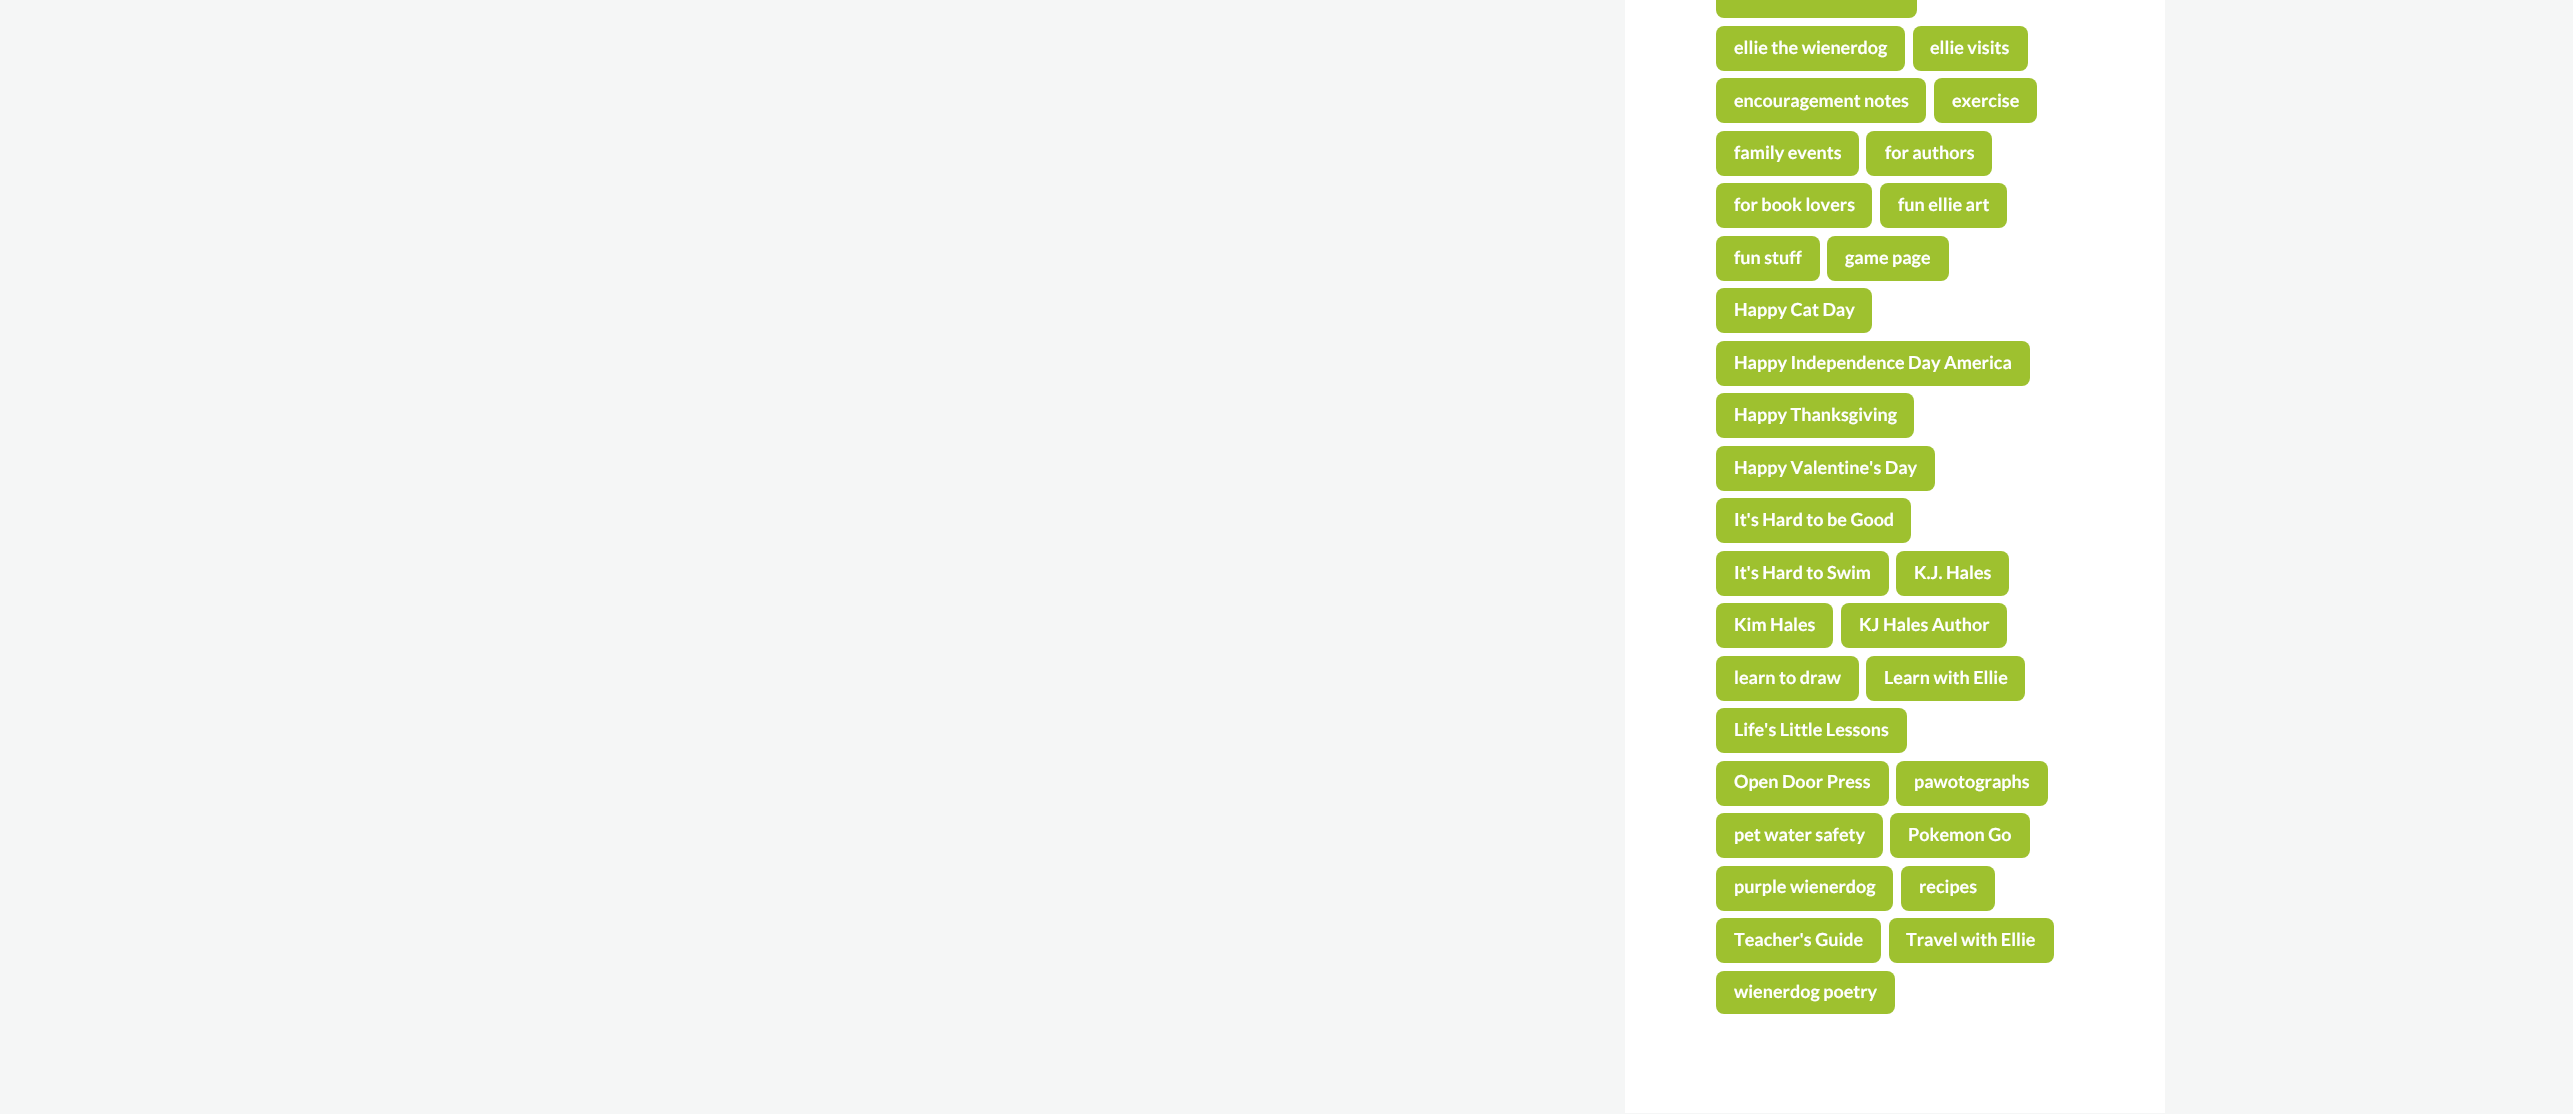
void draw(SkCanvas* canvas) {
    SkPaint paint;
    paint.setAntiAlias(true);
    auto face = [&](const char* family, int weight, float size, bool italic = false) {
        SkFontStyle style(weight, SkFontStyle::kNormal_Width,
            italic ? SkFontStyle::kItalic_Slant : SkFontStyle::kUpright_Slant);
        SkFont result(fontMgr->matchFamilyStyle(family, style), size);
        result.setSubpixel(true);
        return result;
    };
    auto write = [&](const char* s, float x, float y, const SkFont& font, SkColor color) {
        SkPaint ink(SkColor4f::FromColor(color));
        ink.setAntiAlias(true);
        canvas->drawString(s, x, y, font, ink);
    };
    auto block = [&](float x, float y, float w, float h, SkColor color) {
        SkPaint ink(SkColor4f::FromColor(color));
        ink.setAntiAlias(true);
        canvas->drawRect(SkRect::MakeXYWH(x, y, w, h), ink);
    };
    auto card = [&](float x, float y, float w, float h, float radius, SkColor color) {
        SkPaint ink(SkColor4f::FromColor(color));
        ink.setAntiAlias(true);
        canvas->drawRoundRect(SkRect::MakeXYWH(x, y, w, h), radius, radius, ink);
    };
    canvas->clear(SkColorSetRGB(245, 246, 246));
    block(1625, 0, 540, 1113, SK_ColorWHITE);
    card(1716, -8, 201, 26, 8, SkColorSetRGB(158, 193, 47));
    card(1716, 26, 189, 45, 8, SkColorSetRGB(158, 193, 47));
    auto kFont1 = face("Lato", 700, 18);
    write("ellie the wienerdog", 1734, 54, kFont1, SK_ColorWHITE);
    card(1913, 26, 115, 45, 8, SkColorSetRGB(158, 193, 47));
    write("ellie visits", 1930, 54, kFont1, SK_ColorWHITE);
    card(1716, 78, 210, 45, 8, SkColorSetRGB(158, 193, 47));
    write("encouragement notes", 1734, 107, kFont1, SK_ColorWHITE);
    card(1934, 78, 103, 45, 8, SkColorSetRGB(158, 193, 47));
    write("exercise", 1952, 107, kFont1, SK_ColorWHITE);
    card(1716, 131, 143, 45, 8, SkColorSetRGB(158, 193, 47));
    write("family events", 1734, 159, kFont1, SK_ColorWHITE);
    card(1866, 131, 126, 45, 8, SkColorSetRGB(158, 193, 47));
    write("for authors", 1885, 159, kFont1, SK_ColorWHITE);
    card(1716, 183, 156, 45, 8, SkColorSetRGB(158, 193, 47));
    write("for book lovers", 1734, 211, kFont1, SK_ColorWHITE);
    card(1880, 183, 127, 45, 8, SkColorSetRGB(158, 193, 47));
    write("fun ellie art", 1898, 211, kFont1, SK_ColorWHITE);
    card(1716, 236, 104, 45, 8, SkColorSetRGB(158, 193, 47));
    write("fun stuff", 1734, 264, kFont1, SK_ColorWHITE);
    card(1827, 236, 122, 45, 8, SkColorSetRGB(158, 193, 47));
    write("game page", 1845, 264, kFont1, SK_ColorWHITE);
    card(1716, 288, 156, 45, 8, SkColorSetRGB(158, 193, 47));
    write("Happy Cat Day", 1734, 316, kFont1, SK_ColorWHITE);
    card(1716, 341, 314, 45, 8, SkColorSetRGB(158, 193, 47));
    write("Happy Independence Day America", 1734, 369, kFont1, SK_ColorWHITE);
    card(1716, 393, 198, 45, 8, SkColorSetRGB(158, 193, 47));
    write("Happy Thanksgiving", 1734, 421, kFont1, SK_ColorWHITE);
    card(1716, 446, 219, 45, 8, SkColorSetRGB(158, 193, 47));
    write("Happy Valentine's Day", 1734, 474, kFont1, SK_ColorWHITE);
    card(1716, 498, 195, 45, 8, SkColorSetRGB(158, 193, 47));
    write("It's Hard to be Good", 1734, 526, kFont1, SK_ColorWHITE);
    card(1716, 551, 173, 45, 8, SkColorSetRGB(158, 193, 47));
    write("It's Hard to Swim", 1734, 579, kFont1, SK_ColorWHITE);
    card(1896, 551, 113, 45, 8, SkColorSetRGB(158, 193, 47));
    write("K.J. Hales", 1914, 579, kFont1, SK_ColorWHITE);
    card(1716, 603, 117, 45, 8, SkColorSetRGB(158, 193, 47));
    write("Kim Hales", 1734, 631, kFont1, SK_ColorWHITE);
    card(1841, 603, 166, 45, 8, SkColorSetRGB(158, 193, 47));
    write("KJ Hales Author", 1859, 631, kFont1, SK_ColorWHITE);
    card(1716, 656, 143, 45, 8, SkColorSetRGB(158, 193, 47));
    write("learn to draw", 1734, 684, kFont1, SK_ColorWHITE);
    card(1866, 656, 159, 45, 8, SkColorSetRGB(158, 193, 47));
    write("Learn with Ellie", 1884, 684, kFont1, SK_ColorWHITE);
    card(1716, 708, 191, 45, 8, SkColorSetRGB(158, 193, 47));
    write("Life's Little Lessons", 1734, 736, kFont1, SK_ColorWHITE);
    card(1716, 761, 173, 45, 8, SkColorSetRGB(158, 193, 47));
    write("Open Door Press", 1734, 788, kFont1, SK_ColorWHITE);
    card(1896, 761, 152, 45, 8, SkColorSetRGB(158, 193, 47));
    write("pawotographs", 1914, 788, kFont1, SK_ColorWHITE);
    card(1716, 813, 167, 45, 8, SkColorSetRGB(158, 193, 47));
    write("pet water safety", 1734, 841, kFont1, SK_ColorWHITE);
    card(1890, 813, 140, 45, 8, SkColorSetRGB(158, 193, 47));
    write("Pokemon Go", 1908, 841, kFont1, SK_ColorWHITE);
    card(1716, 866, 177, 45, 8, SkColorSetRGB(158, 193, 47));
    write("purple wienerdog", 1734, 893, kFont1, SK_ColorWHITE);
    card(1901, 866, 94, 45, 8, SkColorSetRGB(158, 193, 47));
    write("recipes", 1919, 893, kFont1, SK_ColorWHITE);
    card(1716, 918, 165, 45, 8, SkColorSetRGB(158, 193, 47));
    write("Teacher's Guide", 1734, 946, kFont1, SK_ColorWHITE);
    card(1889, 918, 165, 45, 8, SkColorSetRGB(158, 193, 47));
    write("Travel with Ellie", 1906, 946, kFont1, SK_ColorWHITE);
    card(1716, 971, 179, 43, 8, SkColorSetRGB(158, 193, 47));
    write("wienerdog poetry", 1734, 998, kFont1, SK_ColorWHITE);
}
